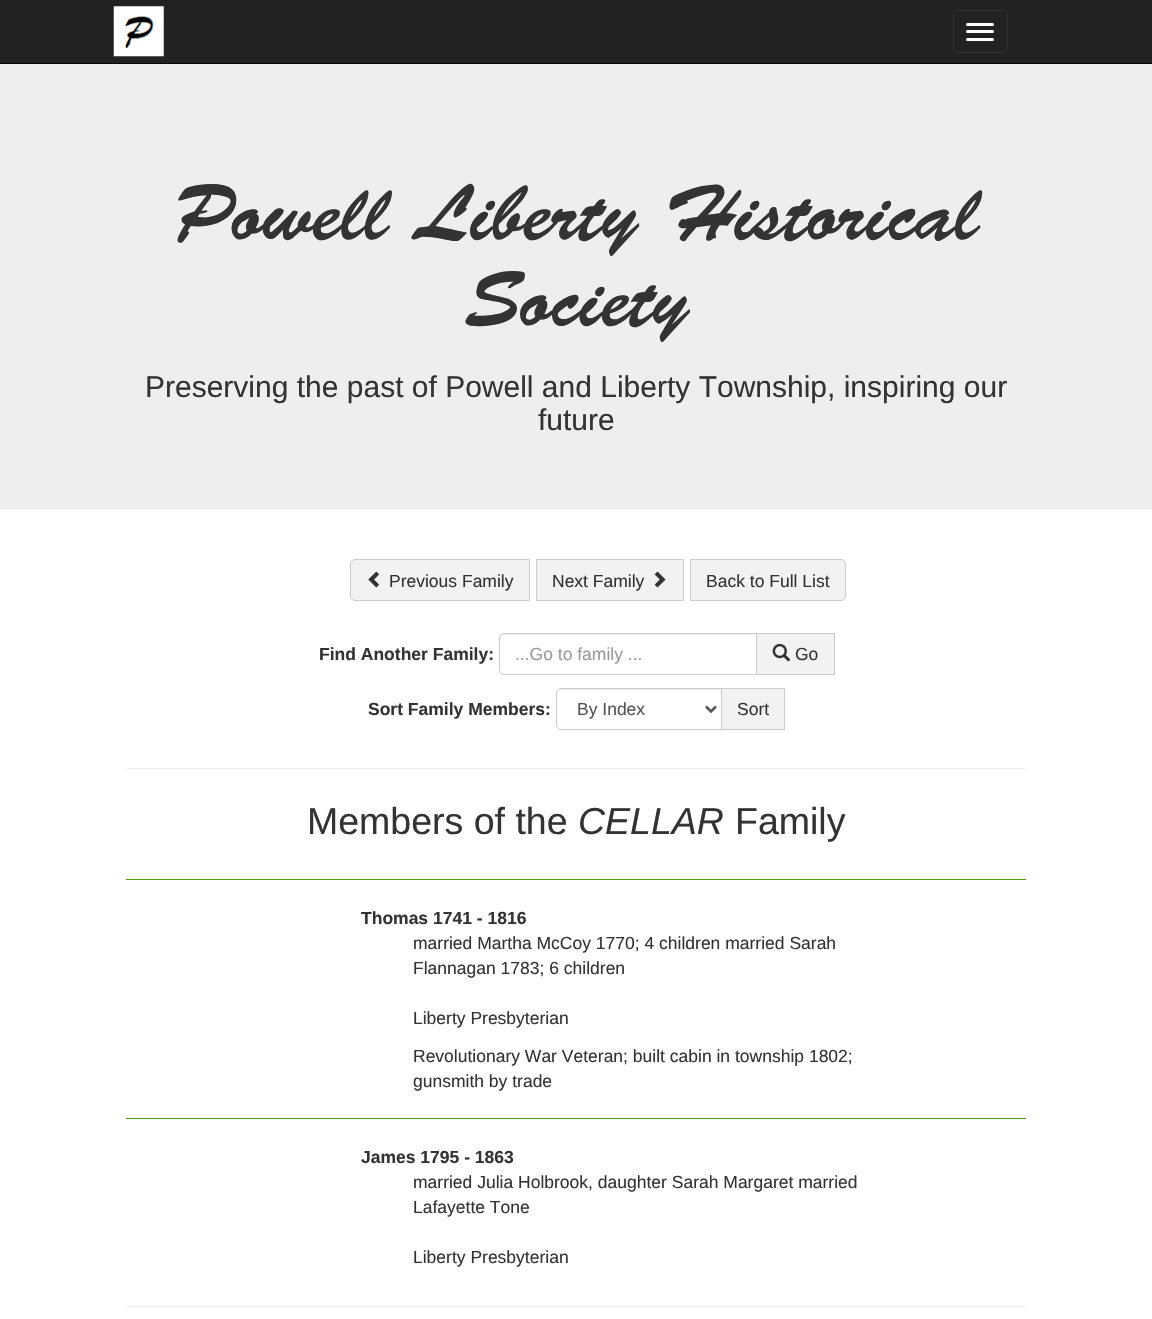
void draw(SkCanvas* canvas) {
    SkPaint paint;
    paint.setAntiAlias(true);
    auto face = [&](const char* family, int weight, float size, bool italic = false) {
        SkFontStyle style(weight, SkFontStyle::kNormal_Width,
            italic ? SkFontStyle::kItalic_Slant : SkFontStyle::kUpright_Slant);
        SkFont result(fontMgr->matchFamilyStyle(family, style), size);
        result.setSubpixel(true);
        return result;
    };
    auto write = [&](const char* s, float x, float y, const SkFont& font, SkColor color) {
        SkPaint ink(SkColor4f::FromColor(color));
        ink.setAntiAlias(true);
        canvas->drawString(s, x, y, font, ink);
    };
    auto block = [&](float x, float y, float w, float h, SkColor color) {
        SkPaint ink(SkColor4f::FromColor(color));
        ink.setAntiAlias(true);
        canvas->drawRect(SkRect::MakeXYWH(x, y, w, h), ink);
    };
    auto card = [&](float x, float y, float w, float h, float radius, SkColor color) {
        SkPaint ink(SkColor4f::FromColor(color));
        ink.setAntiAlias(true);
        canvas->drawRoundRect(SkRect::MakeXYWH(x, y, w, h), radius, radius, ink);
    };
    auto paste = [&](const char* path, float x, float y, float w, float h) {
        auto image = SkImages::DeferredFromEncodedData(SkData::MakeFromFileName(path));
        canvas->drawImageRect(image, SkRect::MakeXYWH(x, y, w, h), SkSamplingOptions());
    };
    canvas->clear(SK_ColorWHITE);
    block(0, 0, 1152, 63, SkColorSetRGB(34, 34, 34));
    block(0, 63, 1152, 1, SkColorSetRGB(8, 8, 8));
    paste("pic1.png", 113, 6, 51, 51);
    paint.setStyle(SkPaint::kStroke_Style);
    paint.setStrokeWidth(1);
    paint.setColor(SkColorSetRGB(51, 51, 51));
    canvas->drawRoundRect(SkRect::MakeXYWH(953.5f, 10.5f, 54, 42), 4.5f, 4.5f, paint);
    card(966, 23, 28, 3, 1.5f, SK_ColorWHITE);
    card(966, 30, 28, 3, 1.5f, SK_ColorWHITE);
    card(966, 38, 28, 3, 1.5f, SK_ColorWHITE);
    block(0, 64, 1152, 445, SkColorSetRGB(238, 238, 238));
    auto kFont1 = face("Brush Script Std", 500, 78.75f);
    write("Powell Liberty Historical", 174, 239, kFont1, SkColorSetRGB(51, 51, 51));
    write("Society", 465, 325, kFont1, SkColorSetRGB(51, 51, 51));
    auto kFont2 = face("Liberation Sans", 400, 30);
    write("Preserving the past of Powell and Liberty Township, inspiring our", 145, 397, kFont2, SkColorSetRGB(51, 51, 51));
    write("future", 538, 430, kFont2, SkColorSetRGB(51, 51, 51));
    paint.setStyle(SkPaint::kFill_Style);
    paint.setColor(SkColorSetRGB(242, 242, 242));
    canvas->drawPath(SkPathBuilder().moveTo(355, 559.5f).lineTo(529.5f, 559.5f).lineTo(529.5f, 600.5f).lineTo(355, 600.5f).cubicTo(352.5f, 600.5f, 350.5f, 598.5f, 350.5f, 596).lineTo(350.5f, 564).cubicTo(350.5f, 561.5f, 352.5f, 559.5f, 355, 559.5f).close().detach(), paint);
    paint.setStyle(SkPaint::kStroke_Style);
    paint.setColor(SkColorSetRGB(204, 204, 204));
    canvas->drawPath(SkPathBuilder().moveTo(355, 559.5f).lineTo(529.5f, 559.5f).lineTo(529.5f, 600.5f).lineTo(355, 600.5f).cubicTo(352.5f, 600.5f, 350.5f, 598.5f, 350.5f, 596).lineTo(350.5f, 564).cubicTo(350.5f, 561.5f, 352.5f, 559.5f, 355, 559.5f).close().detach(), paint);
    paste("pic2.png", 368, 571, 12, 17);
    auto kFont3 = face("Liberation Sans", 400, 17.5f);
    write("Previous Family", 389, 587, kFont3, SkColorSetRGB(51, 51, 51));
    paint.setStyle(SkPaint::kFill_Style);
    paint.setColor(SkColorSetRGB(242, 242, 242));
    canvas->drawRect(SkRect::MakeXYWH(536.5f, 559.5f, 147, 41), paint);
    paint.setStyle(SkPaint::kStroke_Style);
    paint.setColor(SkColorSetRGB(204, 204, 204));
    canvas->drawRect(SkRect::MakeXYWH(536.5f, 559.5f, 147, 41), paint);
    write("Next Family", 552, 587, kFont3, SkColorSetRGB(51, 51, 51));
    paste("pic3.png", 654, 571, 12, 17);
    paint.setStyle(SkPaint::kFill_Style);
    paint.setColor(SkColorSetRGB(242, 242, 242));
    canvas->drawPath(SkPathBuilder().moveTo(690.5f, 559.5f).lineTo(841, 559.5f).cubicTo(843.5f, 559.5f, 845.5f, 561.5f, 845.5f, 564).lineTo(845.5f, 596).cubicTo(845.5f, 598.5f, 843.5f, 600.5f, 841, 600.5f).lineTo(690.5f, 600.5f).close().detach(), paint);
    paint.setStyle(SkPaint::kStroke_Style);
    paint.setColor(SkColorSetRGB(204, 204, 204));
    canvas->drawPath(SkPathBuilder().moveTo(690.5f, 559.5f).lineTo(841, 559.5f).cubicTo(843.5f, 559.5f, 845.5f, 561.5f, 845.5f, 564).lineTo(845.5f, 596).cubicTo(845.5f, 598.5f, 843.5f, 600.5f, 841, 600.5f).lineTo(690.5f, 600.5f).close().detach(), paint);
    write("Back to Full List", 706, 587, kFont3, SkColorSetRGB(51, 51, 51));
    auto kFont4 = face("Liberation Sans", 700, 17.5f);
    write("Find Another Family:", 319, 660, kFont4, SkColorSetRGB(51, 51, 51));
    paint.setStyle(SkPaint::kFill_Style);
    paint.setColor(SkColorSetRGB(236, 236, 236));
    canvas->drawPath(SkPathBuilder().moveTo(504, 635).lineTo(756, 635).lineTo(756, 634).lineTo(504, 634).cubicTo(502, 634, 500, 636, 500, 638).lineTo(500, 639).cubicTo(500, 637, 502, 635, 504, 635).close().detach(), paint);
    paint.setStyle(SkPaint::kStroke_Style);
    paint.setColor(SkColorSetRGB(204, 204, 204));
    canvas->drawPath(SkPathBuilder().moveTo(504, 633.5f).lineTo(757.5f, 633.5f).lineTo(757.5f, 674.5f).lineTo(504, 674.5f).cubicTo(501.5f, 674.5f, 499.5f, 672.5f, 499.5f, 670).lineTo(499.5f, 638).cubicTo(499.5f, 635.5f, 501.5f, 633.5f, 504, 633.5f).close().detach(), paint);
    write("...Go to family ...", 515, 660, kFont3, SkColorSetRGB(153, 153, 153));
    paint.setStyle(SkPaint::kFill_Style);
    paint.setColor(SkColorSetRGB(242, 242, 242));
    canvas->drawRect(SkRect::MakeXYWH(756.5f, 633.5f, 78, 41), paint);
    paint.setStyle(SkPaint::kStroke_Style);
    paint.setColor(SkColorSetRGB(204, 204, 204));
    canvas->drawRect(SkRect::MakeXYWH(756.5f, 633.5f, 78, 41), paint);
    paste("pic4.png", 772, 643, 19, 19);
    write("Go", 795, 660, kFont3, SkColorSetRGB(51, 51, 51));
    write("Sort Family Members:", 368, 715, kFont4, SkColorSetRGB(51, 51, 51));
    paint.setStyle(SkPaint::kFill_Style);
    paint.setColor(SkColorSetRGB(236, 236, 236));
    canvas->drawPath(SkPathBuilder().moveTo(561, 690).lineTo(721, 690).lineTo(721, 689).lineTo(562, 689).cubicTo(559, 689, 558, 691, 558, 694).cubicTo(558, 692, 559, 690, 561, 690).close().detach(), paint);
    paint.setStyle(SkPaint::kStroke_Style);
    paint.setColor(SkColorSetRGB(204, 204, 204));
    canvas->drawPath(SkPathBuilder().moveTo(561, 688.5f).lineTo(722.5f, 688.5f).lineTo(722.5f, 729.5f).lineTo(561, 729.5f).cubicTo(558.5f, 729.5f, 556.5f, 727.5f, 556.5f, 725).lineTo(556.5f, 693).cubicTo(556.5f, 690.5f, 558.5f, 688.5f, 561, 688.5f).close().detach(), paint);
    paint.setStrokeWidth(2.5f);
    paint.setColor(SkColorSetRGB(85, 85, 85));
    canvas->drawPath(SkPathBuilder().moveTo(706, 706.5f).lineTo(711, 711.5f).lineTo(716, 706.5f).detach(), paint);
    write("By Index", 577, 715, kFont3, SkColorSetRGB(85, 85, 85));
    paint.setStyle(SkPaint::kFill_Style);
    paint.setColor(SkColorSetRGB(242, 242, 242));
    canvas->drawRect(SkRect::MakeXYWH(721.5f, 688.5f, 63, 41), paint);
    paint.setStyle(SkPaint::kStroke_Style);
    paint.setStrokeWidth(1);
    paint.setColor(SkColorSetRGB(204, 204, 204));
    canvas->drawRect(SkRect::MakeXYWH(721.5f, 688.5f, 63, 41), paint);
    write("Sort", 737, 715, kFont3, SkColorSetRGB(51, 51, 51));
    block(126, 768, 900, 1, SkColorSetRGB(238, 238, 238));
    auto kFont5 = face("Liberation Sans", 400, 37.5f);
    write("Members of the", 307, 834, kFont5, SkColorSetRGB(51, 51, 51));
    auto kFont6 = face("Liberation Sans", 400, 37.5f, true);
    write("CELLAR", 578, 834, kFont6, SkColorSetRGB(51, 51, 51));
    write("Family", 735, 834, kFont5, SkColorSetRGB(51, 51, 51));
    block(126, 879, 900, 1, SkColorSetRGB(88, 154, 15));
    write("Thomas 1741 - 1816", 361, 924, kFont4, SkColorSetRGB(51, 51, 51));
    write("married Martha McCoy 1770; 4 children married Sarah", 413, 949, kFont3, SkColorSetRGB(51, 51, 51));
    write("Flannagan 1783; 6 children", 413, 974, kFont3, SkColorSetRGB(51, 51, 51));
    write("Liberty Presbyterian", 413, 1024, kFont3, SkColorSetRGB(51, 51, 51));
    write("Revolutionary War Veteran; built cabin in township 1802;", 413, 1062, kFont3, SkColorSetRGB(51, 51, 51));
    write("gunsmith by trade", 413, 1087, kFont3, SkColorSetRGB(51, 51, 51));
    block(126, 1118, 900, 1, SkColorSetRGB(88, 154, 15));
    write("James 1795 - 1863", 361, 1163, kFont4, SkColorSetRGB(51, 51, 51));
    write("married Julia Holbrook, daughter Sarah Margaret married", 413, 1188, kFont3, SkColorSetRGB(51, 51, 51));
    write("Lafayette Tone", 413, 1213, kFont3, SkColorSetRGB(51, 51, 51));
    write("Liberty Presbyterian", 413, 1263, kFont3, SkColorSetRGB(51, 51, 51));
    block(126, 1306, 900, 1, SkColorSetRGB(238, 238, 238));
}
